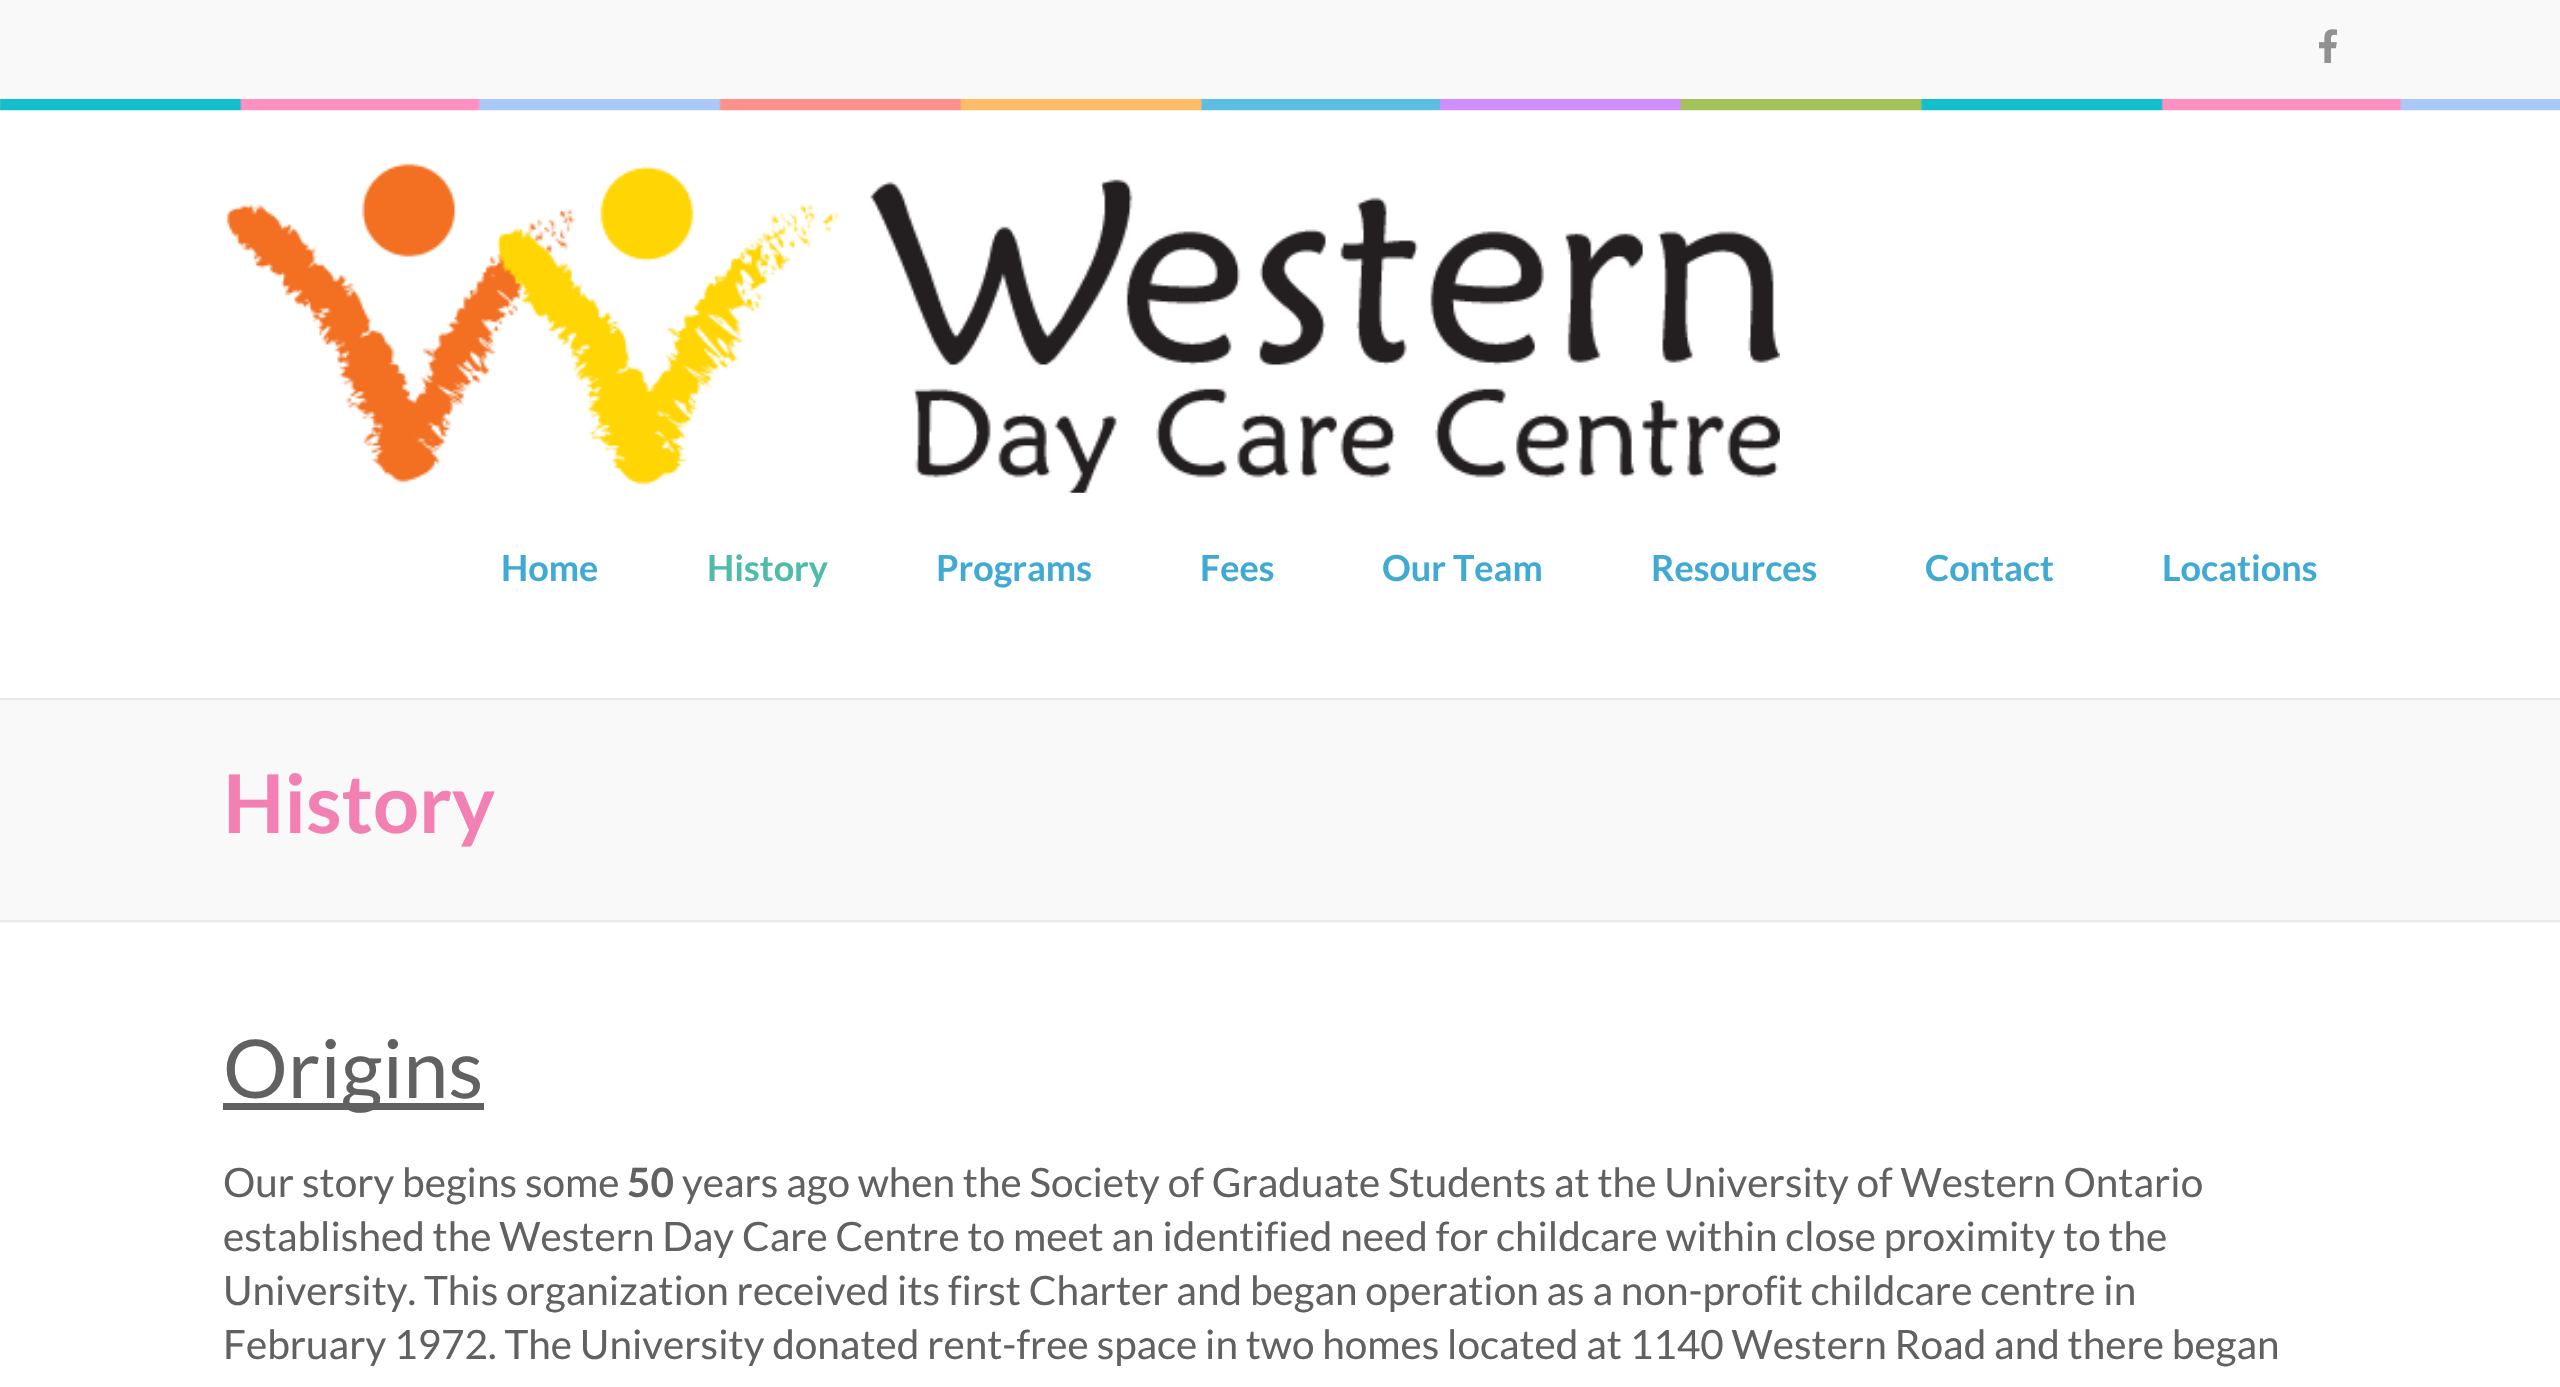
void draw(SkCanvas* canvas) {
    SkPaint paint;
    paint.setAntiAlias(true);
    auto face = [&](const char* family, int weight, float size, bool italic = false) {
        SkFontStyle style(weight, SkFontStyle::kNormal_Width,
            italic ? SkFontStyle::kItalic_Slant : SkFontStyle::kUpright_Slant);
        SkFont result(fontMgr->matchFamilyStyle(family, style), size);
        result.setSubpixel(true);
        return result;
    };
    auto write = [&](const char* s, float x, float y, const SkFont& font, SkColor color) {
        SkPaint ink(SkColor4f::FromColor(color));
        ink.setAntiAlias(true);
        canvas->drawString(s, x, y, font, ink);
    };
    auto block = [&](float x, float y, float w, float h, SkColor color) {
        SkPaint ink(SkColor4f::FromColor(color));
        ink.setAntiAlias(true);
        canvas->drawRect(SkRect::MakeXYWH(x, y, w, h), ink);
    };
    auto paste = [&](const char* path, float x, float y, float w, float h) {
        auto image = SkImages::DeferredFromEncodedData(SkData::MakeFromFileName(path));
        canvas->drawImageRect(image, SkRect::MakeXYWH(x, y, w, h), SkSamplingOptions());
    };
    canvas->clear(SK_ColorWHITE);
    block(0, 0, 2560, 99, SkColorSetRGB(249, 249, 249));
    paste("pic1.png", 0, 99, 2560, 12);
    paste("pic2.png", 2319, 29, 19, 34);
    paste("pic3.png", 226, 163, 1554, 330);
    auto kFont1 = face("Lato", 700, 36);
    write("Home", 501, 581, kFont1, SkColorSetRGB(65, 170, 212));
    write("History", 707, 581, kFont1, SkColorSetRGB(79, 187, 169));
    write("Programs", 936, 581, kFont1, SkColorSetRGB(65, 170, 212));
    write("Fees", 1200, 581, kFont1, SkColorSetRGB(65, 170, 212));
    write("Our Team", 1382, 581, kFont1, SkColorSetRGB(65, 170, 212));
    write("Resources", 1651, 581, kFont1, SkColorSetRGB(65, 170, 212));
    write("Contact", 1925, 581, kFont1, SkColorSetRGB(65, 170, 212));
    write("Locations", 2162, 581, kFont1, SkColorSetRGB(65, 170, 212));
    block(0, 700, 2560, 223, SkColorSetRGB(249, 249, 249));
    block(0, 698, 2560, 2, SkColorSetRGB(233, 233, 233));
    block(0, 920, 2560, 2, SkColorSetRGB(233, 233, 233));
    auto kFont2 = face("Lato", 700, 81);
    write("History", 223, 833, kFont2, SkColorSetRGB(243, 128, 178));
    block(223, 1103, 261, 7, SkColorSetRGB(97, 97, 97));
    auto kFont3 = face("Lato", 400, 81);
    write("Origins", 223, 1098, kFont3, SkColorSetRGB(97, 97, 97));
    auto kFont4 = face("Lato", 400, 40.5f);
    write("Our story begins some", 223, 1197, kFont4, SkColorSetRGB(97, 97, 97));
    auto kFont5 = face("Lato", 700, 40.5f);
    write("50", 627, 1197, kFont5, SkColorSetRGB(97, 97, 97));
    write("years ago when the Society of Graduate Students at the University of Western Ontario", 682, 1197, kFont4, SkColorSetRGB(97, 97, 97));
    write("established the Western Day Care Centre to meet an identified need for childcare within close proximity to the", 223, 1251, kFont4, SkColorSetRGB(97, 97, 97));
    write("University. This organization received its first Charter and began operation as a non-profit childcare centre in", 223, 1305, kFont4, SkColorSetRGB(97, 97, 97));
    write("February 1972. The University donated rent-free space in two homes located at 1140 Western Road and there began", 223, 1359, kFont4, SkColorSetRGB(97, 97, 97));
}
